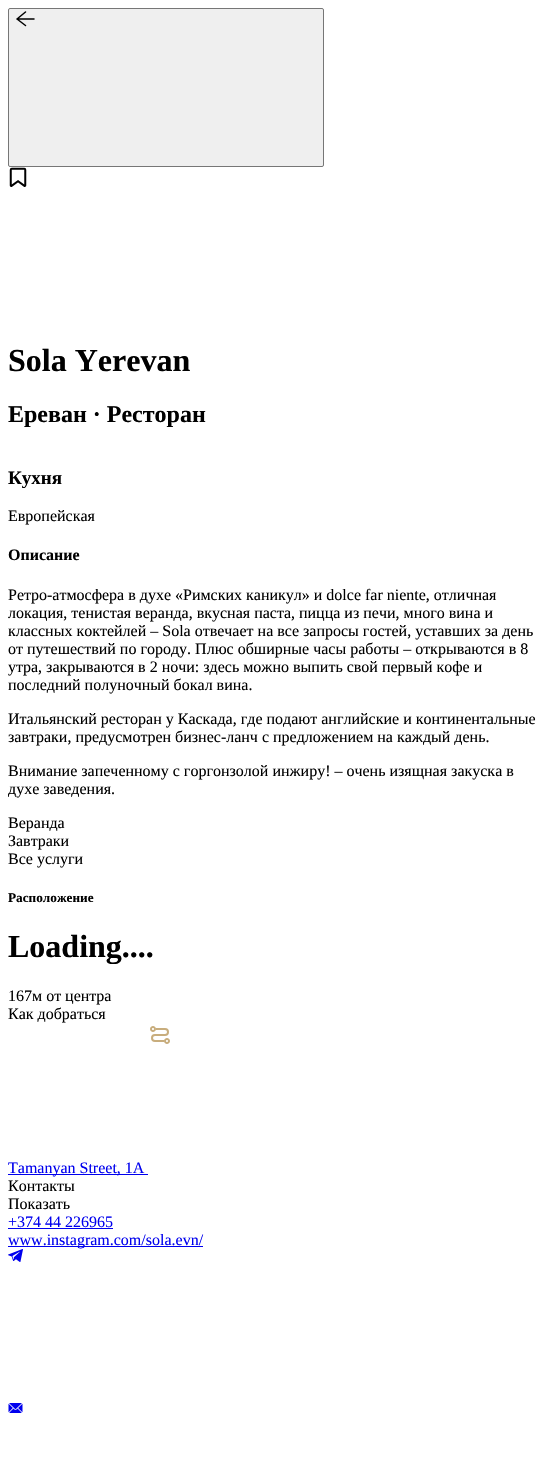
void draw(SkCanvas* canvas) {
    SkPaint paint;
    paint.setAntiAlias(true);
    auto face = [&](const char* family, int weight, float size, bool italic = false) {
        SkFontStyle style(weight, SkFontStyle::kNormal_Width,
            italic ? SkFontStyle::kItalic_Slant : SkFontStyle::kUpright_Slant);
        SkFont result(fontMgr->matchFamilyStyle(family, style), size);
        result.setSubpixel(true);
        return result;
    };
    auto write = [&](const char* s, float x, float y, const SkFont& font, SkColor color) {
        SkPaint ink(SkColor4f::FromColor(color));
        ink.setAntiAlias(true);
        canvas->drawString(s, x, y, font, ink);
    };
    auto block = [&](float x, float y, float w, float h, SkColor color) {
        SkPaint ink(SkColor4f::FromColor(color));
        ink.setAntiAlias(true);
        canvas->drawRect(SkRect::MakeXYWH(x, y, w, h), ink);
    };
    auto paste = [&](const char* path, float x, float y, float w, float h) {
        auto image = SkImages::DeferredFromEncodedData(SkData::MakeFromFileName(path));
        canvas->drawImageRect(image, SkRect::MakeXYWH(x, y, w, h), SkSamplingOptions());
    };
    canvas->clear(SK_ColorWHITE);
    paint.setColor(SkColorSetRGB(239, 239, 239));
    canvas->drawRoundRect(SkRect::MakeXYWH(8.5f, 8.5f, 315, 158), 1.5f, 1.5f, paint);
    paint.setStyle(SkPaint::kStroke_Style);
    paint.setStrokeWidth(1);
    paint.setColor(SkColorSetRGB(118, 118, 118));
    canvas->drawRoundRect(SkRect::MakeXYWH(8.5f, 8.5f, 315, 158), 1.5f, 1.5f, paint);
    paste("pic1.png", 16, 11, 19, 16);
    paste("pic2.png", 9, 167, 18, 20);
    auto kFont1 = face("Liberation Serif", 700, 32);
    write("Sola Yerevan", 8, 371, kFont1, SK_ColorBLACK);
    auto kFont2 = face("Liberation Serif", 700, 24);
    write("Ереван · Ресторан", 8, 422, kFont2, SK_ColorBLACK);
    auto kFont3 = face("Liberation Serif", 700, 19);
    write("Кухня", 8, 484, kFont3, SK_ColorBLACK);
    auto kFont4 = face("Liberation Serif", 400, 16);
    write("Европейская", 8, 521, kFont4, SK_ColorBLACK);
    auto kFont5 = face("Liberation Serif", 700, 16);
    write("Описание", 8, 560, kFont5, SK_ColorBLACK);
    write("Ретро-атмосфера в духе «Римских каникул» и dolce far niente, отличная", 8, 600, kFont4, SK_ColorBLACK);
    write("локация, тенистая веранда, вкусная паста, пицца из печи, много вина и", 8, 618, kFont4, SK_ColorBLACK);
    write("классных коктейлей – Sola отвечает на все запросы гостей, уставших за день", 8, 636, kFont4, SK_ColorBLACK);
    write("от путешествий по городу. Плюс обширные часы работы – открываются в 8", 8, 654, kFont4, SK_ColorBLACK);
    write("утра, закрываются в 2 ночи: здесь можно выпить свой первый кофе и", 8, 672, kFont4, SK_ColorBLACK);
    write("последний полуночный бокал вина.", 8, 690, kFont4, SK_ColorBLACK);
    write("Итальянский ресторан у Каскада, где подают английские и континентальные", 8, 724, kFont4, SK_ColorBLACK);
    write("завтраки, предусмотрен бизнес-ланч с предложением на каждый день.", 8, 742, kFont4, SK_ColorBLACK);
    write("Внимание запеченному с горгонзолой инжиру! – очень изящная закуска в", 8, 776, kFont4, SK_ColorBLACK);
    write("духе заведения.", 8, 794, kFont4, SK_ColorBLACK);
    write("Веранда", 8, 828, kFont4, SK_ColorBLACK);
    write("Завтраки", 8, 846, kFont4, SK_ColorBLACK);
    write("Все услуги", 8, 864, kFont4, SK_ColorBLACK);
    auto kFont6 = face("Liberation Serif", 700, 13.25f);
    write("Расположение", 8, 902, kFont6, SK_ColorBLACK);
    write("Loading....", 8, 957, kFont1, SK_ColorBLACK);
    write("167м от центра", 8, 1001, kFont4, SK_ColorBLACK);
    write("Как добраться", 8, 1019, kFont4, SK_ColorBLACK);
    paste("pic3.png", 150, 1026, 20, 18);
    block(8, 1174, 136, 1, SkColorSetRGB(0, 0, 238));
    write("Tamanyan Street, 1A", 8, 1173, kFont4, SkColorSetRGB(0, 0, 238));
    block(144, 1174, 4, 1, SkColorSetRGB(0, 0, 238));
    write("Контакты", 8, 1191, kFont4, SK_ColorBLACK);
    write("Показать", 8, 1209, kFont4, SK_ColorBLACK);
    write("+374 44 226965", 8, 1227, kFont4, SkColorSetRGB(0, 0, 238));
    block(8, 1228, 105, 1, SkColorSetRGB(0, 0, 238));
    block(8, 1246, 195, 1, SkColorSetRGB(0, 0, 238));
    write("www.instagram.com/sola.evn/", 8, 1245, kFont4, SkColorSetRGB(0, 0, 238));
    paste("pic4.png", 8, 1249, 15, 13);
    paste("pic5.png", 8, 1403, 15, 10);
}
